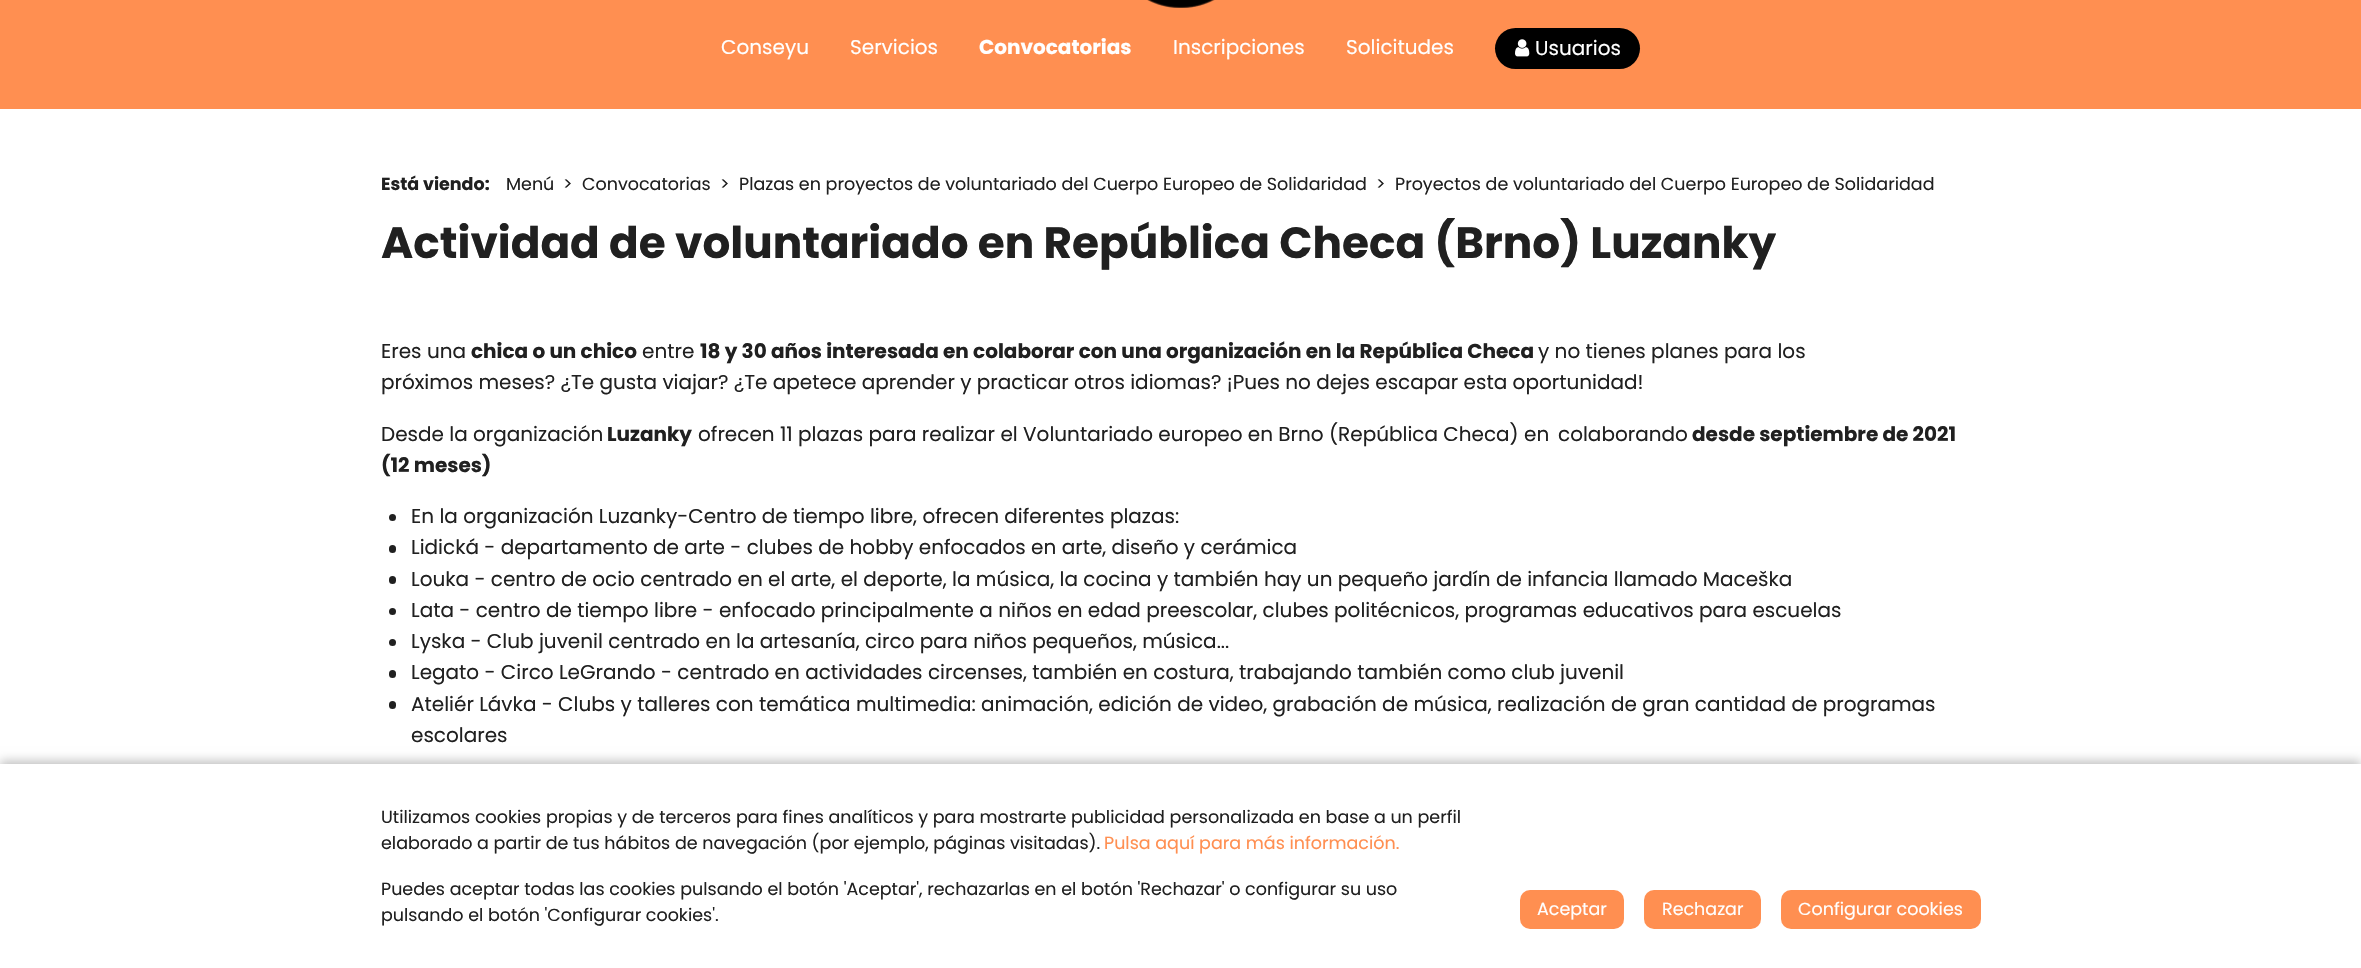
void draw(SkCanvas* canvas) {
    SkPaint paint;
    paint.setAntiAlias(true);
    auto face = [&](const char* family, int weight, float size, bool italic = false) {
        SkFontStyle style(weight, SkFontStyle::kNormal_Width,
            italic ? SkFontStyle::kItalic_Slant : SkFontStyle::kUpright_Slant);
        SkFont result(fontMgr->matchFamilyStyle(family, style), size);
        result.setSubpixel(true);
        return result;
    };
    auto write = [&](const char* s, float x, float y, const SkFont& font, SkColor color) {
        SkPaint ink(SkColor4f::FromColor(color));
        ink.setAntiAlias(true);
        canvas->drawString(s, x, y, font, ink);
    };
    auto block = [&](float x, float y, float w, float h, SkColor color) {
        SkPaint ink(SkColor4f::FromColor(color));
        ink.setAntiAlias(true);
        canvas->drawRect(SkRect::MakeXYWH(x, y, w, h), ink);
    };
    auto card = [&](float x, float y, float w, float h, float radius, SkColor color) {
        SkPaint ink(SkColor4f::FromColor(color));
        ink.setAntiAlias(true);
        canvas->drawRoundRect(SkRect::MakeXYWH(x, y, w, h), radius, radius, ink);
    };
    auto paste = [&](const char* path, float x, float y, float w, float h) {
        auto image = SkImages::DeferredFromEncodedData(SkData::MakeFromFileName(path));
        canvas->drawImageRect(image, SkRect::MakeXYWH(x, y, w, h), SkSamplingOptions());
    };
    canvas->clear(SK_ColorWHITE);
    block(0, 0, 2361, 109, SkColorSetRGB(255, 143, 81));
    paste("pic1.png", 1147, 0, 68, 8);
    auto kFont1 = face("Poppins", 400, 20);
    write("Conseyu", 721, 54, kFont1, SK_ColorWHITE);
    write("Servicios", 850, 54, kFont1, SK_ColorWHITE);
    auto kFont2 = face("Poppins", 700, 20);
    write("Convocatorias", 979, 54, kFont2, SK_ColorWHITE);
    write("Inscripciones", 1173, 54, kFont1, SK_ColorWHITE);
    write("Solicitudes", 1346, 54, kFont1, SK_ColorWHITE);
    card(1495, 28, 145, 41, 20.5f, SK_ColorBLACK);
    paste("pic2.png", 1515, 39, 15, 18);
    write("Usuarios", 1535, 55, kFont1, SK_ColorWHITE);
    auto kFont3 = face("Poppins", 700, 17.5f);
    write("Está viendo:", 381, 190, kFont3, SkColorSetRGB(32, 32, 32));
    auto kFont4 = face("Poppins", 400, 17.5f);
    write("Menú", 506, 190, kFont4, SkColorSetRGB(32, 32, 32));
    write(">", 563, 190, kFont4, SkColorSetRGB(32, 32, 32));
    write("Convocatorias", 582, 190, kFont4, SkColorSetRGB(32, 32, 32));
    write(">", 720, 190, kFont4, SkColorSetRGB(32, 32, 32));
    write("Plazas en proyectos de voluntariado del Cuerpo Europeo de Solidaridad", 739, 190, kFont4, SkColorSetRGB(32, 32, 32));
    write(">", 1376, 190, kFont4, SkColorSetRGB(32, 32, 32));
    write("Proyectos de voluntariado del Cuerpo Europeo de Solidaridad", 1395, 190, kFont4, SkColorSetRGB(32, 32, 32));
    auto kFont5 = face("Poppins", 700, 43.75f);
    write("Actividad de voluntariado en República Checa (Brno) Luzanky", 381, 258, kFont5, SkColorSetRGB(32, 32, 32));
    write("Eres una", 381, 358, kFont1, SkColorSetRGB(32, 32, 32));
    write("chica o un chico", 471, 358, kFont2, SkColorSetRGB(32, 32, 32));
    write("entre", 642, 358, kFont1, SkColorSetRGB(32, 32, 32));
    write("18 y 30 años interesada en colaborar con una organización en la República Checa", 700, 358, kFont2, SkColorSetRGB(32, 32, 32));
    write("y no tienes planes para los", 1538, 358, kFont1, SkColorSetRGB(32, 32, 32));
    write("próximos meses? ¿Te gusta viajar? ¿Te apetece aprender y practicar otros idiomas? ¡Pues no dejes escapar esta oportunidad!", 381, 389, kFont1, SkColorSetRGB(32, 32, 32));
    write("Desde la organización", 381, 441, kFont1, SkColorSetRGB(32, 32, 32));
    write("Luzanky", 607, 441, kFont2, SkColorSetRGB(32, 32, 32));
    write("ofrecen 11 plazas para realizar el Voluntariado europeo en Brno (República Checa) en", 698, 441, kFont1, SkColorSetRGB(32, 32, 32));
    write("colaborando", 1558, 441, kFont1, SkColorSetRGB(32, 32, 32));
    write("desde septiembre de 2021", 1692, 441, kFont2, SkColorSetRGB(32, 32, 32));
    write("(12 meses)", 381, 472, kFont2, SkColorSetRGB(32, 32, 32));
    paint.setColor(SkColorSetRGB(32, 32, 32));
    canvas->drawCircle(392.5f, 517.5f, 3.5f, paint);
    write("En la organización Luzanky-Centro de tiempo libre, ofrecen diferentes plazas:", 411, 523, kFont1, SkColorSetRGB(32, 32, 32));
    card(389, 545, 7, 8, 3.5f, SkColorSetRGB(32, 32, 32));
    write("Lidická - departamento de arte - clubes de hobby enfocados en arte, diseño y cerámica", 411, 554, kFont1, SkColorSetRGB(32, 32, 32));
    card(389, 576, 7, 8, 3.5f, SkColorSetRGB(32, 32, 32));
    write("Louka - centro de ocio centrado en el arte, el deporte, la música, la cocina y también hay un pequeño jardín de infancia llamado Maceška", 411, 586, kFont1, SkColorSetRGB(32, 32, 32));
    canvas->drawCircle(392.5f, 611.5f, 3.5f, paint);
    write("Lata - centro de tiempo libre - enfocado principalmente a niños en edad preescolar, clubes politécnicos, programas educativos para escuelas", 411, 617, kFont1, SkColorSetRGB(32, 32, 32));
    canvas->drawCircle(392.5f, 642.5f, 3.5f, paint);
    write("Lyska - Club juvenil centrado en la artesanía, circo para niños pequeños, música...", 411, 648, kFont1, SkColorSetRGB(32, 32, 32));
    card(389, 670, 7, 8, 3.5f, SkColorSetRGB(32, 32, 32));
    write("Legato - Circo LeGrando - centrado en actividades circenses, también en costura, trabajando también como club juvenil", 411, 679, kFont1, SkColorSetRGB(32, 32, 32));
    card(389, 701, 7, 8, 3.5f, SkColorSetRGB(32, 32, 32));
    write("Ateliér Lávka - Clubs y talleres con temática multimedia: animación, edición de video, grabación de música, realización de gran cantidad de programas", 411, 711, kFont1, SkColorSetRGB(32, 32, 32));
    write("escolares", 411, 742, kFont1, SkColorSetRGB(32, 32, 32));
    paint.setColor(SkColorSetARGB(64, 0, 0, 0));
    paint.setMaskFilter(SkMaskFilter::MakeBlur(kNormal_SkBlurStyle, 5));
    canvas->drawRect(SkRect::MakeXYWH(0, 761, 2361, 205), paint);
    paint.setMaskFilter(nullptr);
    block(0, 764, 2361, 204, SK_ColorWHITE);
    write("Utilizamos cookies propias y de terceros para fines analíticos y para mostrarte publicidad personalizada en base a un perfil", 381, 823, kFont4, SkColorSetRGB(32, 32, 32));
    write("elaborado a partir de tus hábitos de navegación (por ejemplo, páginas visitadas).", 381, 849, kFont4, SkColorSetRGB(32, 32, 32));
    write("Pulsa aquí para más información.", 1104, 849, kFont4, SkColorSetRGB(255, 143, 81));
    write("Puedes aceptar todas las cookies pulsando el botón 'Aceptar', rechazarlas en el botón 'Rechazar' o configurar su uso", 381, 895, kFont4, SkColorSetRGB(32, 32, 32));
    write("pulsando el botón 'Configurar cookies'.", 381, 921, kFont4, SkColorSetRGB(32, 32, 32));
    card(1520, 890, 104, 39, 10, SkColorSetRGB(255, 143, 81));
    write("Aceptar", 1537, 915, kFont4, SK_ColorWHITE);
    card(1644, 890, 117, 39, 10, SkColorSetRGB(255, 143, 81));
    write("Rechazar", 1662, 915, kFont4, SK_ColorWHITE);
    card(1781, 890, 200, 39, 10, SkColorSetRGB(255, 143, 81));
    write("Configurar cookies", 1798, 915, kFont4, SK_ColorWHITE);
}
